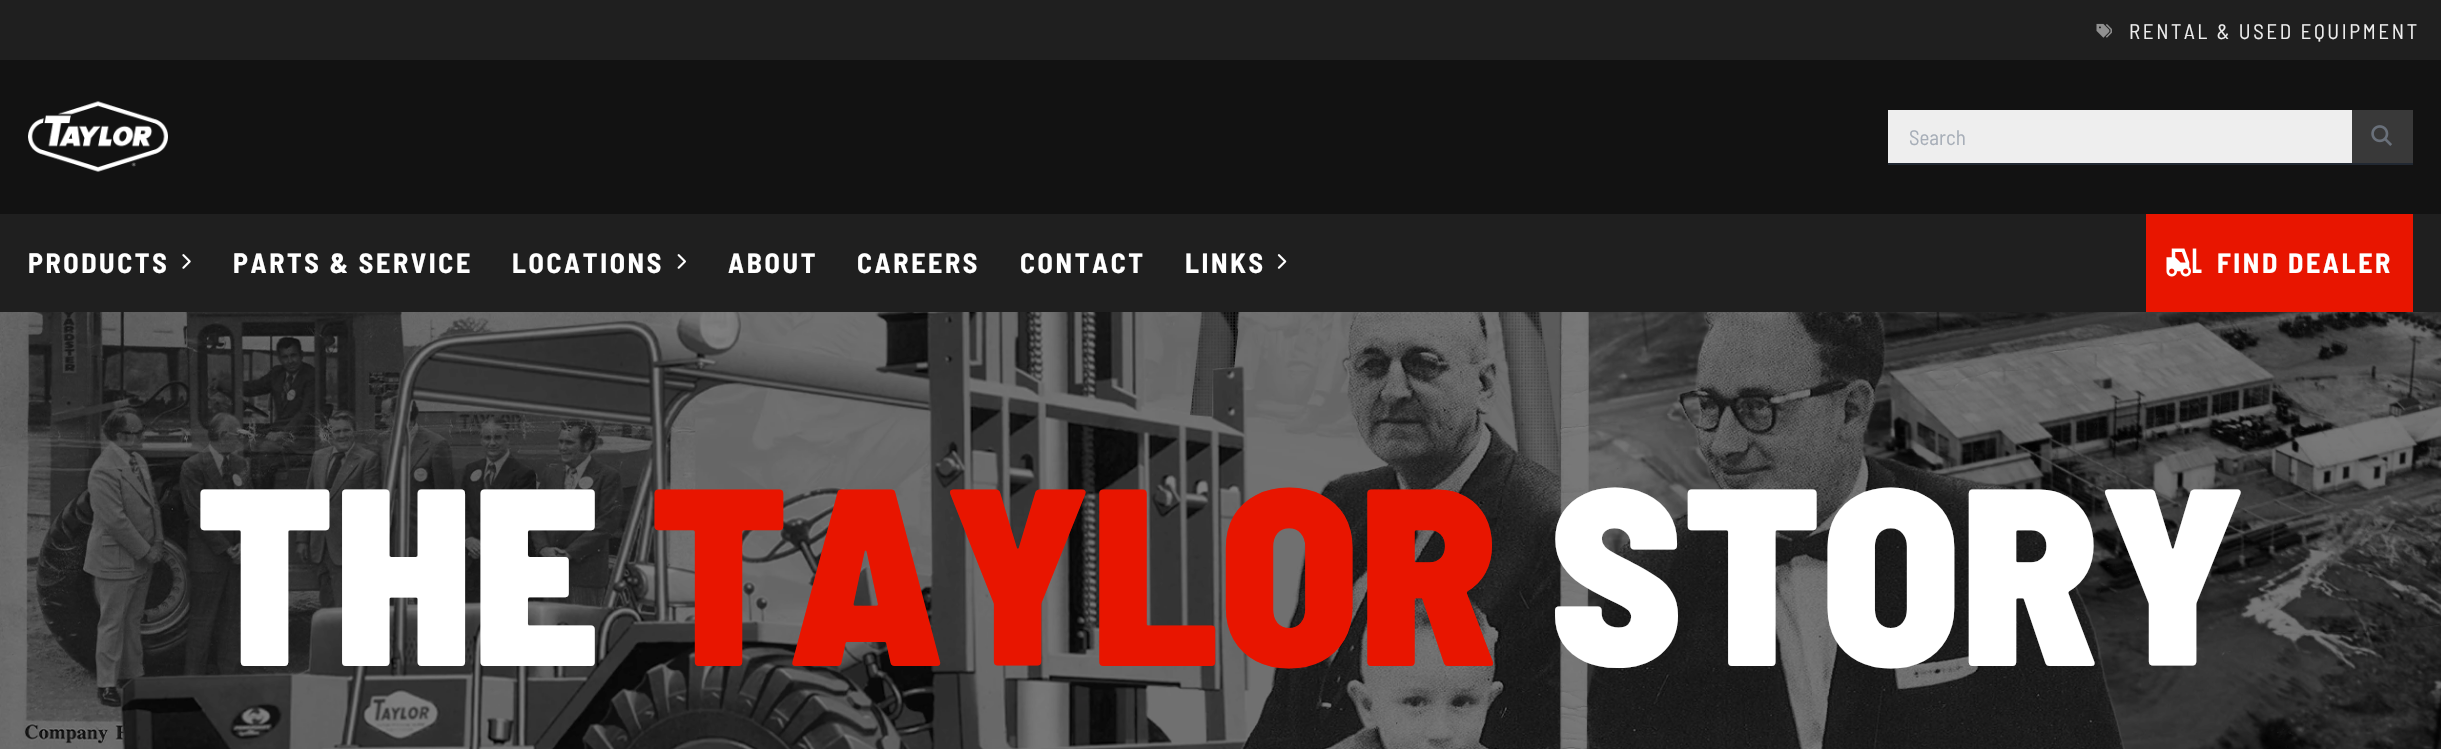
void draw(SkCanvas* canvas) {
    SkPaint paint;
    paint.setAntiAlias(true);
    auto face = [&](const char* family, int weight, float size, bool italic = false) {
        SkFontStyle style(weight, SkFontStyle::kNormal_Width,
            italic ? SkFontStyle::kItalic_Slant : SkFontStyle::kUpright_Slant);
        SkFont result(fontMgr->matchFamilyStyle(family, style), size);
        result.setSubpixel(true);
        return result;
    };
    auto write = [&](const char* s, float x, float y, const SkFont& font, SkColor color) {
        SkPaint ink(SkColor4f::FromColor(color));
        ink.setAntiAlias(true);
        canvas->drawString(s, x, y, font, ink);
    };
    auto writeSpaced = [&](const char* s, float x, float y, const SkFont& font, const SkPaint& ink, float letter, float word) {
        std::vector<SkGlyphID> glyphs(font.countText(s, strlen(s), SkTextEncoding::kUTF8));
        std::vector<float> xs(glyphs.size());
        font.textToGlyphs(s, strlen(s), SkTextEncoding::kUTF8, glyphs);
        font.getXPos(glyphs, xs, x);
        float extra = 0;
        for (size_t i = 0; i < glyphs.size(); i++) {
            xs[i] += extra;
            extra += letter + word * (glyphs[i] == font.unicharToGlyph(' '));
        }
        canvas->drawTextBlob(SkTextBlob::MakeFromPosHGlyphs(glyphs, xs, y, font), 0, 0, ink);
    };
    auto block = [&](float x, float y, float w, float h, SkColor color) {
        SkPaint ink(SkColor4f::FromColor(color));
        ink.setAntiAlias(true);
        canvas->drawRect(SkRect::MakeXYWH(x, y, w, h), ink);
    };
    auto paste = [&](const char* path, float x, float y, float w, float h) {
        auto image = SkImages::DeferredFromEncodedData(SkData::MakeFromFileName(path));
        canvas->drawImageRect(image, SkRect::MakeXYWH(x, y, w, h), SkSamplingOptions());
    };
    canvas->clear(SK_ColorWHITE);
    block(0, 0, 2441, 312, SkColorSetRGB(31, 31, 31));
    paste("pic1.png", 2096, 23, 16, 15);
    auto kFont1 = face("Barlow Semi Condensed", 400, 21);
    paint.setColor(SkColorSetRGB(238, 238, 238));
    writeSpaced("RENTAL & USED EQUIPMENT", 2129, 39, kFont1, paint, 2.6f, 0);
    block(0, 60, 2441, 154, SkColorSetRGB(18, 18, 18));
    paste("pic2.png", 28, 101, 140, 71);
    block(1888, 110, 464, 53, SkColorSetRGB(238, 238, 238));
    write("Search", 1909, 145, kFont1, SkColorSetRGB(167, 174, 184));
    block(2352, 110, 61, 53, SkColorSetRGB(57, 57, 57));
    paste("pic3.png", 2371, 125, 21, 21);
    block(1888, 163, 525, 2, SkColorSetRGB(33, 40, 50));
    auto kFont2 = face("Barlow Semi Condensed", 700, 28);
    paint.setColor(SK_ColorWHITE);
    writeSpaced("PRODUCTS", 28, 273, kFont2, paint, 2.6f, 0);
    paste("pic4.png", 182, 254, 9, 15);
    writeSpaced("PARTS & SERVICE", 233, 273, kFont2, paint, 2.6f, 0);
    writeSpaced("LOCATIONS", 512, 273, kFont2, paint, 2.6f, 0);
    paste("pic5.png", 677, 254, 9, 15);
    writeSpaced("ABOUT", 728, 273, kFont2, paint, 2.6f, 0);
    writeSpaced("CAREERS", 857, 273, kFont2, paint, 2.6f, 0);
    writeSpaced("CONTACT", 1020, 273, kFont2, paint, 2.6f, 0);
    writeSpaced("LINKS", 1185, 273, kFont2, paint, 2.6f, 0);
    paste("pic6.png", 1277, 254, 10, 15);
    block(2146, 214, 267, 98, SkColorSetRGB(232, 21, 0));
    paste("pic7.png", 2166, 248, 36, 29);
    writeSpaced("FIND DEALER", 2217, 273, kFont2, paint, 2.6f, 0);
    paste("pic8.png", 0, 312, 2441, 437);
    auto kFont3 = face("Barlow Semi Condensed", 900, 252);
    write("THE", 196, 666, kFont3, SK_ColorWHITE);
    write("TAYLOR", 650, 666, kFont3, SkColorSetRGB(232, 21, 0));
    write("STORY", 1549, 666, kFont3, SK_ColorWHITE);
}
